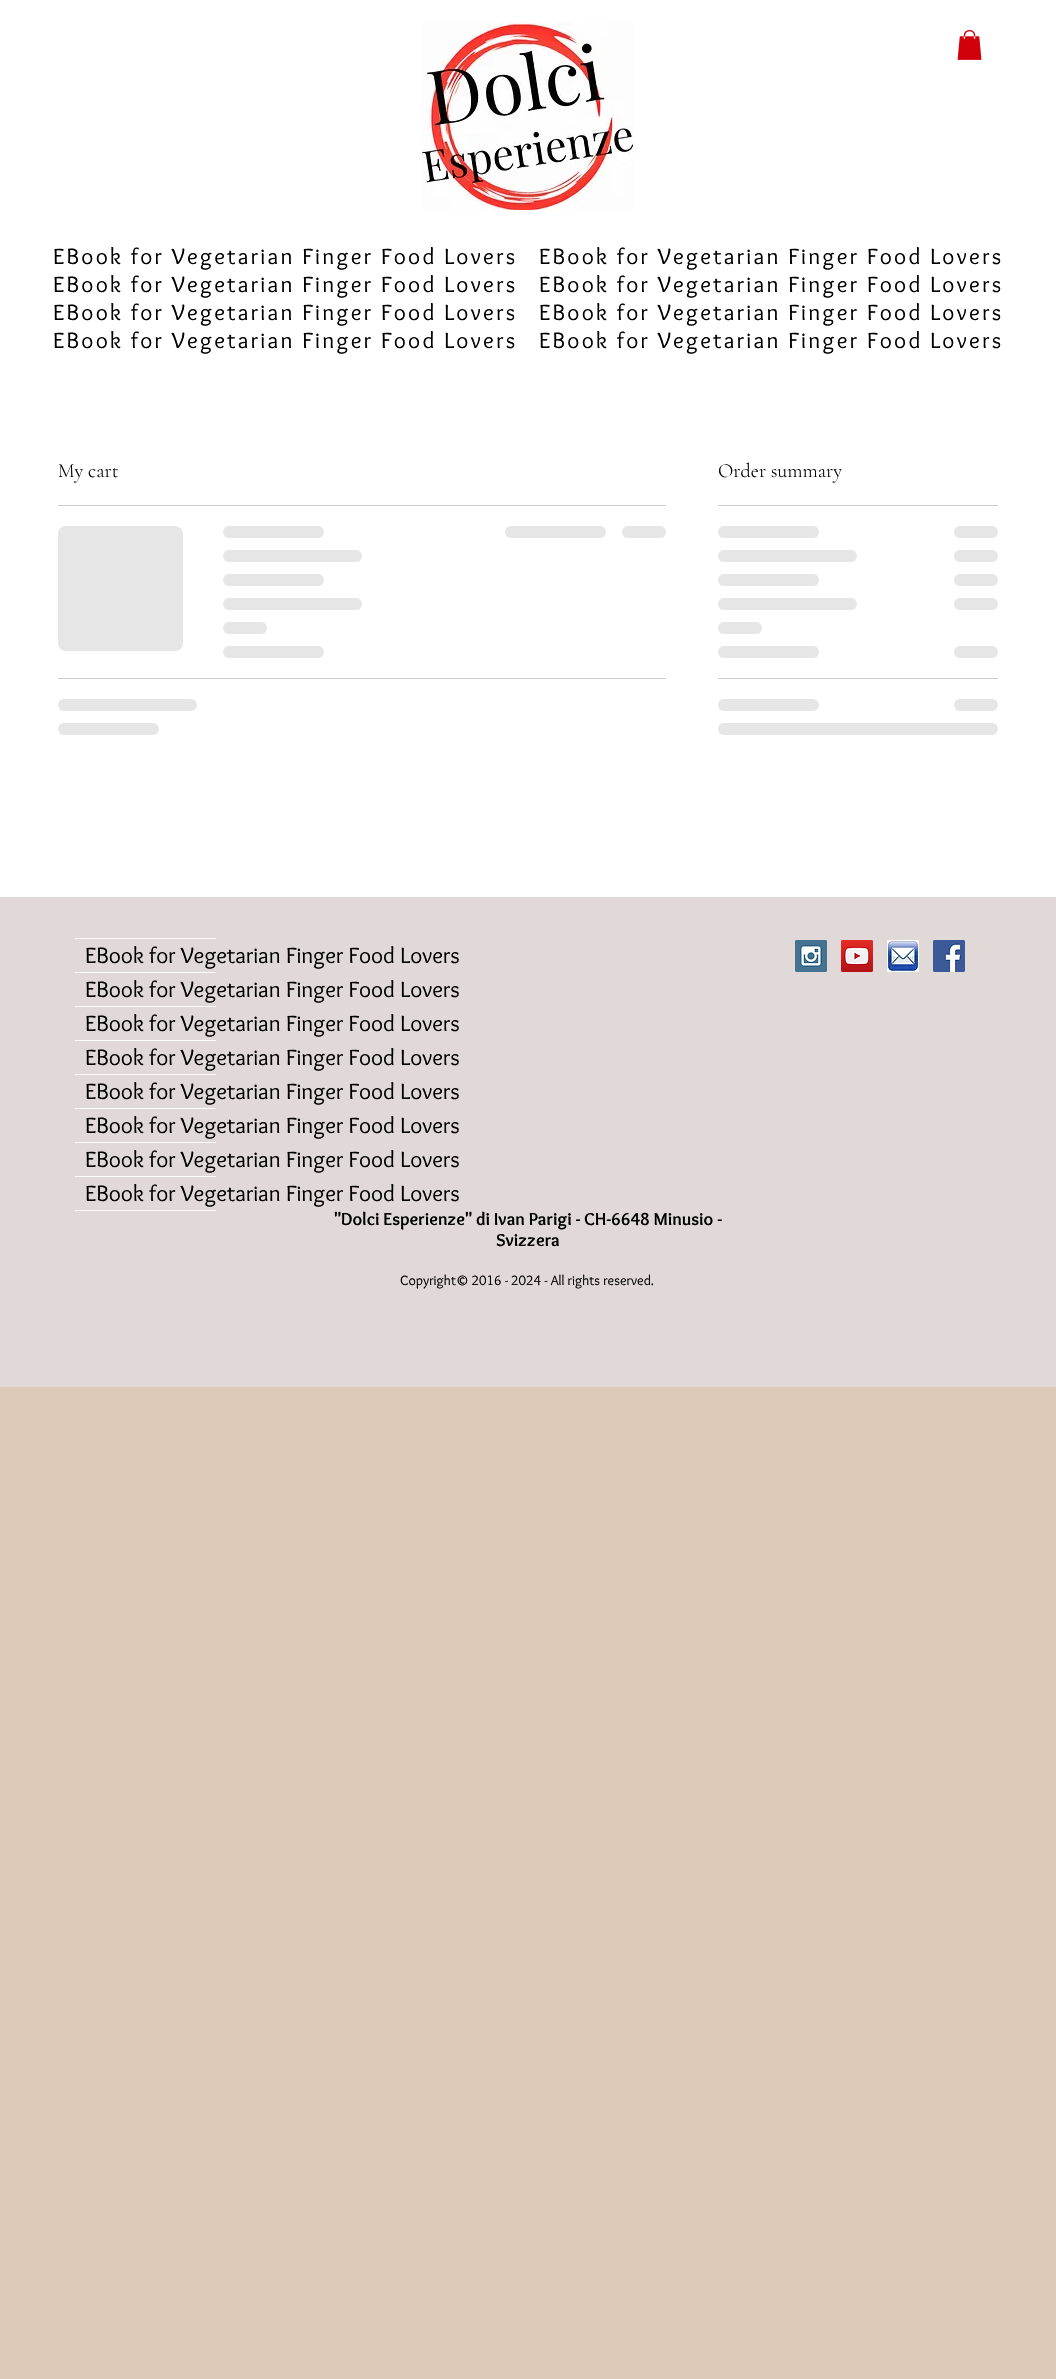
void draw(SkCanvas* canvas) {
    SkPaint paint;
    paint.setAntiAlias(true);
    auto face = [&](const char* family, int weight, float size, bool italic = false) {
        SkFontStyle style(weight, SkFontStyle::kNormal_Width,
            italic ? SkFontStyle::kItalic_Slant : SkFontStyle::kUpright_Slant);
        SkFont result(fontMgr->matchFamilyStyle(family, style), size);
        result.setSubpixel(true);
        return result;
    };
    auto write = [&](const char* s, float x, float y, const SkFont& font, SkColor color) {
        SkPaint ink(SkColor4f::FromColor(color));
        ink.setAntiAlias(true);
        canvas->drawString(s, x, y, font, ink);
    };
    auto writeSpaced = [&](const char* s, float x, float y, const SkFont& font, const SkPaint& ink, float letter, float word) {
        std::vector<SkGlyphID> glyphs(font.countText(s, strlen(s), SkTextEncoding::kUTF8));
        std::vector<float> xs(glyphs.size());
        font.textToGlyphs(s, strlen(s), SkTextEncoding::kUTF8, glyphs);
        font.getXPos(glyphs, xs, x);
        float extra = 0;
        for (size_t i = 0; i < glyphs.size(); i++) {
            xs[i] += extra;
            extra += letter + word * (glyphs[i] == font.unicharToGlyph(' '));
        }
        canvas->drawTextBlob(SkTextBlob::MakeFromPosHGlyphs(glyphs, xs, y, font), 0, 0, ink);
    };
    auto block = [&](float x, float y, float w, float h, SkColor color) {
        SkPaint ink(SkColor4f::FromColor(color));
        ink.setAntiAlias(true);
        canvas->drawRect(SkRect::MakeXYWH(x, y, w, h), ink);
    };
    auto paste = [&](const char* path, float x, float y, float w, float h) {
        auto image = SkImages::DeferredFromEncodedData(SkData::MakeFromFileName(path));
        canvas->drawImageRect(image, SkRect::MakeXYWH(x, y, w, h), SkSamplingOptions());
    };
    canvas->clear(SkColorSetRGB(220, 201, 184));
    block(0, 0, 1056, 897, SK_ColorWHITE);
    paste("pic1.png", 422, 22, 212, 188);
    paste("pic2.png", 957, 30, 25, 30);
    auto kFont1 = face("Overlock", 400, 23);
    paint.setColor(SK_ColorBLACK);
    writeSpaced("EBook for Vegetarian Finger Food Lovers", 53, 264, kFont1, paint, 2.3f, 0);
    writeSpaced("EBook for Vegetarian Finger Food Lovers", 539, 264, kFont1, paint, 2.3f, 0);
    writeSpaced("EBook for Vegetarian Finger Food Lovers", 53, 292, kFont1, paint, 2.3f, 0);
    writeSpaced("EBook for Vegetarian Finger Food Lovers", 539, 292, kFont1, paint, 2.3f, 0);
    writeSpaced("EBook for Vegetarian Finger Food Lovers", 53, 320, kFont1, paint, 2.3f, 0);
    writeSpaced("EBook for Vegetarian Finger Food Lovers", 539, 320, kFont1, paint, 2.3f, 0);
    writeSpaced("EBook for Vegetarian Finger Food Lovers", 53, 348, kFont1, paint, 2.3f, 0);
    writeSpaced("EBook for Vegetarian Finger Food Lovers", 539, 348, kFont1, paint, 2.3f, 0);
    block(58, 505, 608, 1, SkColorSetRGB(204, 204, 204));
    auto kFont2 = face("Cormorant Garamond", 300, 20);
    write("My cart", 58, 477, kFont2, SK_ColorBLACK);
    {
        const SkColor colors[] = {SkColorSetRGB(230, 230, 230), SkColorSetRGB(204, 204, 204), SkColorSetRGB(230, 230, 230)};
        const float stops[] = {0.25f, 0.37f, 0.63f};
        const SkPoint ends[] = {{58, 589}, {558, 589}};
        paint.setShader(SkGradientShader::MakeLinear(ends, colors, stops, 3, SkTileMode::kClamp));
        paint.setAlpha(255);
    }
    canvas->drawRoundRect(SkRect::MakeXYWH(58, 526, 125, 125), 8, 8, paint);
    {
        const SkColor colors[] = {SkColorSetRGB(230, 230, 230), SkColorSetRGB(204, 204, 204), SkColorSetRGB(230, 230, 230)};
        const float stops[] = {0.25f, 0.37f, 0.63f};
        const SkPoint ends[] = {{223, 532}, {627, 532}};
        paint.setShader(SkGradientShader::MakeLinear(ends, colors, stops, 3, SkTileMode::kClamp));
        paint.setAlpha(255);
    }
    canvas->drawRoundRect(SkRect::MakeXYWH(223, 526, 101, 12), 6, 6, paint);
    {
        const SkColor colors[] = {SkColorSetRGB(230, 230, 230), SkColorSetRGB(204, 204, 204), SkColorSetRGB(230, 230, 230)};
        const float stops[] = {0.25f, 0.37f, 0.63f};
        const SkPoint ends[] = {{223, 556}, {779, 556}};
        paint.setShader(SkGradientShader::MakeLinear(ends, colors, stops, 3, SkTileMode::kClamp));
        paint.setAlpha(255);
    }
    canvas->drawRoundRect(SkRect::MakeXYWH(223, 550, 139, 12), 6, 6, paint);
    {
        const SkColor colors[] = {SkColorSetRGB(230, 230, 230), SkColorSetRGB(204, 204, 204), SkColorSetRGB(230, 230, 230)};
        const float stops[] = {0.25f, 0.37f, 0.63f};
        const SkPoint ends[] = {{223, 580}, {627, 580}};
        paint.setShader(SkGradientShader::MakeLinear(ends, colors, stops, 3, SkTileMode::kClamp));
        paint.setAlpha(255);
    }
    canvas->drawRoundRect(SkRect::MakeXYWH(223, 574, 101, 12), 6, 6, paint);
    {
        const SkColor colors[] = {SkColorSetRGB(230, 230, 230), SkColorSetRGB(204, 204, 204), SkColorSetRGB(230, 230, 230)};
        const float stops[] = {0.25f, 0.37f, 0.63f};
        const SkPoint ends[] = {{223, 604}, {779, 604}};
        paint.setShader(SkGradientShader::MakeLinear(ends, colors, stops, 3, SkTileMode::kClamp));
        paint.setAlpha(255);
    }
    canvas->drawRoundRect(SkRect::MakeXYWH(223, 598, 139, 12), 6, 6, paint);
    {
        const SkColor colors[] = {SkColorSetRGB(230, 230, 230), SkColorSetRGB(204, 204, 204), SkColorSetRGB(230, 230, 230)};
        const float stops[] = {0.25f, 0.37f, 0.63f};
        const SkPoint ends[] = {{223, 628}, {399, 628}};
        paint.setShader(SkGradientShader::MakeLinear(ends, colors, stops, 3, SkTileMode::kClamp));
        paint.setAlpha(255);
    }
    canvas->drawRoundRect(SkRect::MakeXYWH(223, 622, 44, 12), 6, 6, paint);
    {
        const SkColor colors[] = {SkColorSetRGB(230, 230, 230), SkColorSetRGB(204, 204, 204), SkColorSetRGB(230, 230, 230)};
        const float stops[] = {0.25f, 0.37f, 0.63f};
        const SkPoint ends[] = {{223, 652}, {627, 652}};
        paint.setShader(SkGradientShader::MakeLinear(ends, colors, stops, 3, SkTileMode::kClamp));
        paint.setAlpha(255);
    }
    canvas->drawRoundRect(SkRect::MakeXYWH(223, 646, 101, 12), 6, 6, paint);
    {
        const SkColor colors[] = {SkColorSetRGB(230, 230, 230), SkColorSetRGB(204, 204, 204), SkColorSetRGB(230, 230, 230)};
        const float stops[] = {0.25f, 0.37f, 0.63f};
        const SkPoint ends[] = {{505, 532}, {909, 532}};
        paint.setShader(SkGradientShader::MakeLinear(ends, colors, stops, 3, SkTileMode::kClamp));
        paint.setAlpha(255);
    }
    canvas->drawRoundRect(SkRect::MakeXYWH(505, 526, 101, 12), 6, 6, paint);
    {
        const SkColor colors[] = {SkColorSetRGB(230, 230, 230), SkColorSetRGB(204, 204, 204), SkColorSetRGB(230, 230, 230)};
        const float stops[] = {0.25f, 0.37f, 0.63f};
        const SkPoint ends[] = {{622, 532}, {798, 532}};
        paint.setShader(SkGradientShader::MakeLinear(ends, colors, stops, 3, SkTileMode::kClamp));
        paint.setAlpha(255);
    }
    canvas->drawRoundRect(SkRect::MakeXYWH(622, 526, 44, 12), 6, 6, paint);
    block(58, 678, 608, 1, SkColorSetRGB(204, 204, 204));
    {
        const SkColor colors[] = {SkColorSetRGB(230, 230, 230), SkColorSetRGB(204, 204, 204), SkColorSetRGB(230, 230, 230)};
        const float stops[] = {0.25f, 0.37f, 0.63f};
        const SkPoint ends[] = {{58, 705}, {614, 705}};
        paint.setShader(SkGradientShader::MakeLinear(ends, colors, stops, 3, SkTileMode::kClamp));
        paint.setAlpha(255);
    }
    canvas->drawRoundRect(SkRect::MakeXYWH(58, 699, 139, 12), 6, 6, paint);
    {
        const SkColor colors[] = {SkColorSetRGB(230, 230, 230), SkColorSetRGB(204, 204, 204), SkColorSetRGB(230, 230, 230)};
        const float stops[] = {0.25f, 0.37f, 0.63f};
        const SkPoint ends[] = {{58, 729}, {462, 729}};
        paint.setShader(SkGradientShader::MakeLinear(ends, colors, stops, 3, SkTileMode::kClamp));
        paint.setAlpha(255);
    }
    canvas->drawRoundRect(SkRect::MakeXYWH(58, 723, 101, 12), 6, 6, paint);
    block(718, 505, 280, 1, SkColorSetRGB(204, 204, 204));
    write("Order summary", 718, 477, kFont2, SK_ColorBLACK);
    {
        const SkColor colors[] = {SkColorSetRGB(230, 230, 230), SkColorSetRGB(204, 204, 204), SkColorSetRGB(230, 230, 230)};
        const float stops[] = {0.25f, 0.37f, 0.63f};
        const SkPoint ends[] = {{718, 532}, {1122, 532}};
        paint.setShader(SkGradientShader::MakeLinear(ends, colors, stops, 3, SkTileMode::kClamp));
        paint.setAlpha(255);
    }
    canvas->drawRoundRect(SkRect::MakeXYWH(718, 526, 101, 12), 6, 6, paint);
    {
        const SkColor colors[] = {SkColorSetRGB(230, 230, 230), SkColorSetRGB(204, 204, 204), SkColorSetRGB(230, 230, 230)};
        const float stops[] = {0.25f, 0.37f, 0.63f};
        const SkPoint ends[] = {{954, 532}, {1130, 532}};
        paint.setShader(SkGradientShader::MakeLinear(ends, colors, stops, 3, SkTileMode::kClamp));
        paint.setAlpha(255);
    }
    canvas->drawRoundRect(SkRect::MakeXYWH(954, 526, 44, 12), 6, 6, paint);
    {
        const SkColor colors[] = {SkColorSetRGB(230, 230, 230), SkColorSetRGB(204, 204, 204), SkColorSetRGB(230, 230, 230)};
        const float stops[] = {0.25f, 0.37f, 0.63f};
        const SkPoint ends[] = {{718, 556}, {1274, 556}};
        paint.setShader(SkGradientShader::MakeLinear(ends, colors, stops, 3, SkTileMode::kClamp));
        paint.setAlpha(255);
    }
    canvas->drawRoundRect(SkRect::MakeXYWH(718, 550, 139, 12), 6, 6, paint);
    {
        const SkColor colors[] = {SkColorSetRGB(230, 230, 230), SkColorSetRGB(204, 204, 204), SkColorSetRGB(230, 230, 230)};
        const float stops[] = {0.25f, 0.37f, 0.63f};
        const SkPoint ends[] = {{954, 556}, {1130, 556}};
        paint.setShader(SkGradientShader::MakeLinear(ends, colors, stops, 3, SkTileMode::kClamp));
        paint.setAlpha(255);
    }
    canvas->drawRoundRect(SkRect::MakeXYWH(954, 550, 44, 12), 6, 6, paint);
    {
        const SkColor colors[] = {SkColorSetRGB(230, 230, 230), SkColorSetRGB(204, 204, 204), SkColorSetRGB(230, 230, 230)};
        const float stops[] = {0.25f, 0.37f, 0.63f};
        const SkPoint ends[] = {{718, 580}, {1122, 580}};
        paint.setShader(SkGradientShader::MakeLinear(ends, colors, stops, 3, SkTileMode::kClamp));
        paint.setAlpha(255);
    }
    canvas->drawRoundRect(SkRect::MakeXYWH(718, 574, 101, 12), 6, 6, paint);
    {
        const SkColor colors[] = {SkColorSetRGB(230, 230, 230), SkColorSetRGB(204, 204, 204), SkColorSetRGB(230, 230, 230)};
        const float stops[] = {0.25f, 0.37f, 0.63f};
        const SkPoint ends[] = {{954, 580}, {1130, 580}};
        paint.setShader(SkGradientShader::MakeLinear(ends, colors, stops, 3, SkTileMode::kClamp));
        paint.setAlpha(255);
    }
    canvas->drawRoundRect(SkRect::MakeXYWH(954, 574, 44, 12), 6, 6, paint);
    {
        const SkColor colors[] = {SkColorSetRGB(230, 230, 230), SkColorSetRGB(204, 204, 204), SkColorSetRGB(230, 230, 230)};
        const float stops[] = {0.25f, 0.37f, 0.63f};
        const SkPoint ends[] = {{718, 604}, {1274, 604}};
        paint.setShader(SkGradientShader::MakeLinear(ends, colors, stops, 3, SkTileMode::kClamp));
        paint.setAlpha(255);
    }
    canvas->drawRoundRect(SkRect::MakeXYWH(718, 598, 139, 12), 6, 6, paint);
    {
        const SkColor colors[] = {SkColorSetRGB(230, 230, 230), SkColorSetRGB(204, 204, 204), SkColorSetRGB(230, 230, 230)};
        const float stops[] = {0.25f, 0.37f, 0.63f};
        const SkPoint ends[] = {{954, 604}, {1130, 604}};
        paint.setShader(SkGradientShader::MakeLinear(ends, colors, stops, 3, SkTileMode::kClamp));
        paint.setAlpha(255);
    }
    canvas->drawRoundRect(SkRect::MakeXYWH(954, 598, 44, 12), 6, 6, paint);
    {
        const SkColor colors[] = {SkColorSetRGB(230, 230, 230), SkColorSetRGB(204, 204, 204), SkColorSetRGB(230, 230, 230)};
        const float stops[] = {0.25f, 0.37f, 0.63f};
        const SkPoint ends[] = {{718, 628}, {894, 628}};
        paint.setShader(SkGradientShader::MakeLinear(ends, colors, stops, 3, SkTileMode::kClamp));
        paint.setAlpha(255);
    }
    canvas->drawRoundRect(SkRect::MakeXYWH(718, 622, 44, 12), 6, 6, paint);
    {
        const SkColor colors[] = {SkColorSetRGB(230, 230, 230), SkColorSetRGB(204, 204, 204), SkColorSetRGB(230, 230, 230)};
        const float stops[] = {0.25f, 0.37f, 0.63f};
        const SkPoint ends[] = {{718, 652}, {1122, 652}};
        paint.setShader(SkGradientShader::MakeLinear(ends, colors, stops, 3, SkTileMode::kClamp));
        paint.setAlpha(255);
    }
    canvas->drawRoundRect(SkRect::MakeXYWH(718, 646, 101, 12), 6, 6, paint);
    {
        const SkColor colors[] = {SkColorSetRGB(230, 230, 230), SkColorSetRGB(204, 204, 204), SkColorSetRGB(230, 230, 230)};
        const float stops[] = {0.25f, 0.37f, 0.63f};
        const SkPoint ends[] = {{954, 652}, {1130, 652}};
        paint.setShader(SkGradientShader::MakeLinear(ends, colors, stops, 3, SkTileMode::kClamp));
        paint.setAlpha(255);
    }
    canvas->drawRoundRect(SkRect::MakeXYWH(954, 646, 44, 12), 6, 6, paint);
    block(718, 678, 280, 1, SkColorSetRGB(204, 204, 204));
    {
        const SkColor colors[] = {SkColorSetRGB(230, 230, 230), SkColorSetRGB(204, 204, 204), SkColorSetRGB(230, 230, 230)};
        const float stops[] = {0.25f, 0.37f, 0.63f};
        const SkPoint ends[] = {{718, 705}, {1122, 705}};
        paint.setShader(SkGradientShader::MakeLinear(ends, colors, stops, 3, SkTileMode::kClamp));
        paint.setAlpha(255);
    }
    canvas->drawRoundRect(SkRect::MakeXYWH(718, 699, 101, 12), 6, 6, paint);
    {
        const SkColor colors[] = {SkColorSetRGB(230, 230, 230), SkColorSetRGB(204, 204, 204), SkColorSetRGB(230, 230, 230)};
        const float stops[] = {0.25f, 0.37f, 0.63f};
        const SkPoint ends[] = {{954, 705}, {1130, 705}};
        paint.setShader(SkGradientShader::MakeLinear(ends, colors, stops, 3, SkTileMode::kClamp));
        paint.setAlpha(255);
    }
    canvas->drawRoundRect(SkRect::MakeXYWH(954, 699, 44, 12), 6, 6, paint);
    {
        const SkColor colors[] = {SkColorSetRGB(230, 230, 230), SkColorSetRGB(204, 204, 204), SkColorSetRGB(230, 230, 230)};
        const float stops[] = {0.25f, 0.37f, 0.63f};
        const SkPoint ends[] = {{718, 729}, {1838, 729}};
        paint.setShader(SkGradientShader::MakeLinear(ends, colors, stops, 3, SkTileMode::kClamp));
        paint.setAlpha(255);
    }
    canvas->drawRoundRect(SkRect::MakeXYWH(718, 723, 280, 12), 6, 6, paint);
    block(0, 897, 1056, 490, SkColorSetRGB(225, 217, 215));
    block(75, 938, 141, 1, SK_ColorWHITE);
    block(75, 1210, 141, 1, SK_ColorWHITE);
    block(75, 972, 141, 1, SK_ColorWHITE);
    write("EBook for Vegetarian Finger Food Lovers", 85, 963, kFont1, SK_ColorBLACK);
    block(75, 1006, 141, 1, SK_ColorWHITE);
    write("EBook for Vegetarian Finger Food Lovers", 85, 997, kFont1, SK_ColorBLACK);
    block(75, 1040, 141, 1, SK_ColorWHITE);
    write("EBook for Vegetarian Finger Food Lovers", 85, 1031, kFont1, SK_ColorBLACK);
    block(75, 1074, 141, 1, SK_ColorWHITE);
    write("EBook for Vegetarian Finger Food Lovers", 85, 1065, kFont1, SK_ColorBLACK);
    block(75, 1108, 141, 1, SK_ColorWHITE);
    write("EBook for Vegetarian Finger Food Lovers", 85, 1099, kFont1, SK_ColorBLACK);
    block(75, 1142, 141, 1, SK_ColorWHITE);
    write("EBook for Vegetarian Finger Food Lovers", 85, 1133, kFont1, SK_ColorBLACK);
    block(75, 1176, 141, 1, SK_ColorWHITE);
    write("EBook for Vegetarian Finger Food Lovers", 85, 1167, kFont1, SK_ColorBLACK);
    write("EBook for Vegetarian Finger Food Lovers", 85, 1201, kFont1, SK_ColorBLACK);
    paste("pic3.png", 795, 940, 32, 32);
    paste("pic4.png", 841, 940, 32, 32);
    paste("pic5.png", 887, 940, 32, 32);
    paste("pic6.png", 933, 940, 32, 32);
    auto kFont3 = face("Overlock", 700, 18);
    write("\"Dolci Esperienze\" di Ivan Parigi - CH-6648 Minusio -", 334, 1225, kFont3, SK_ColorBLACK);
    write("Svizzera", 496, 1246, kFont3, SK_ColorBLACK);
    auto kFont4 = face("Overlock", 400, 14);
    write("Copyright© 2016 - 2024 - All rights reserved.", 400, 1285, kFont4, SK_ColorBLACK);
}
